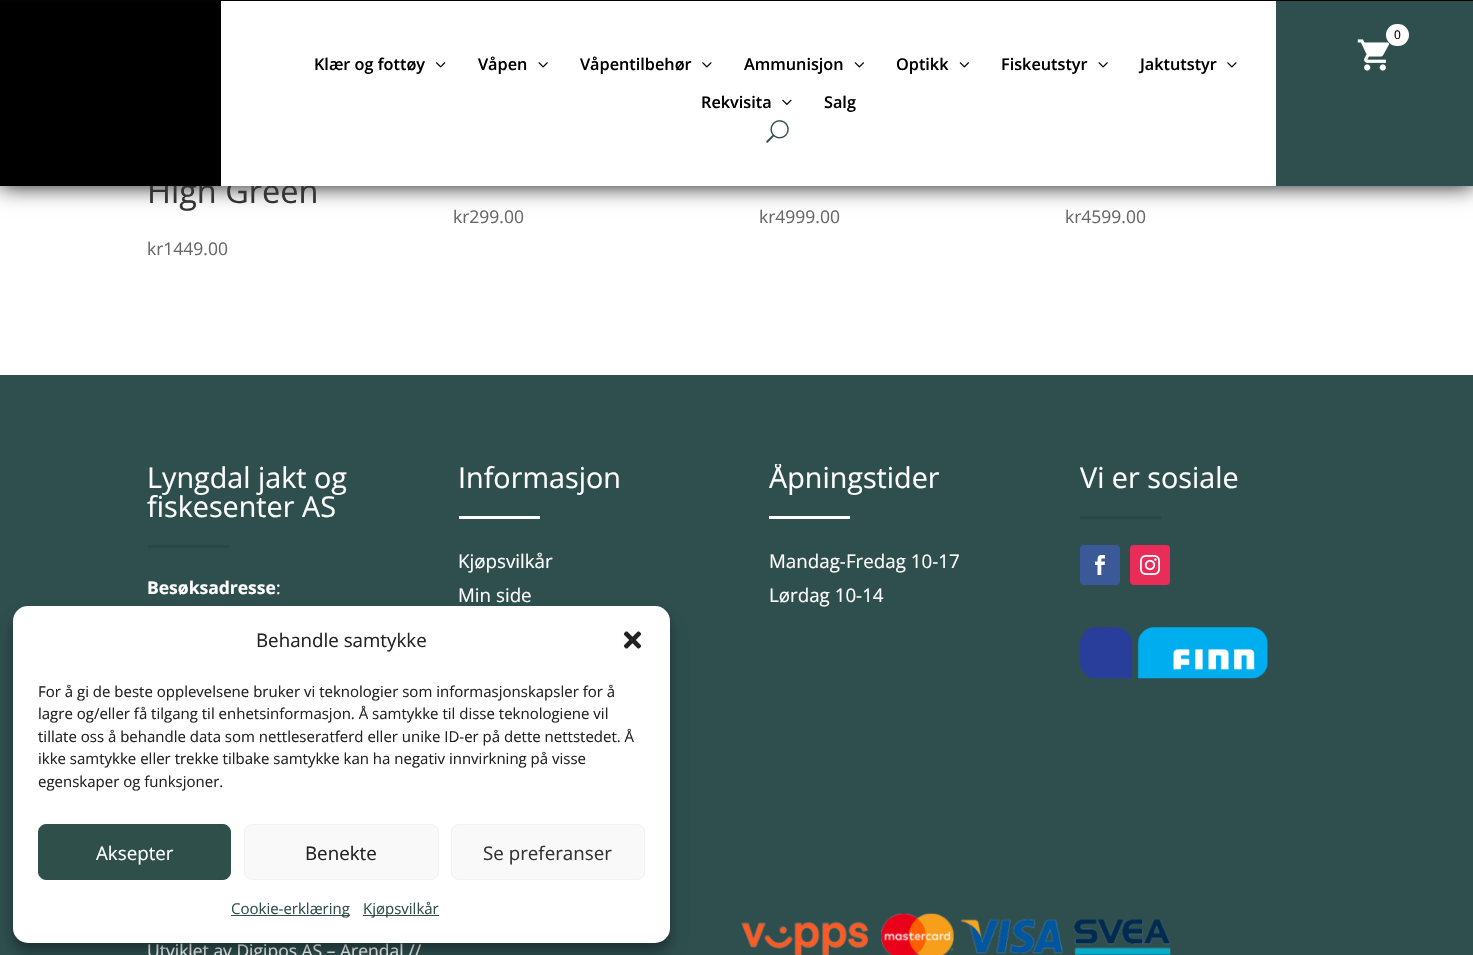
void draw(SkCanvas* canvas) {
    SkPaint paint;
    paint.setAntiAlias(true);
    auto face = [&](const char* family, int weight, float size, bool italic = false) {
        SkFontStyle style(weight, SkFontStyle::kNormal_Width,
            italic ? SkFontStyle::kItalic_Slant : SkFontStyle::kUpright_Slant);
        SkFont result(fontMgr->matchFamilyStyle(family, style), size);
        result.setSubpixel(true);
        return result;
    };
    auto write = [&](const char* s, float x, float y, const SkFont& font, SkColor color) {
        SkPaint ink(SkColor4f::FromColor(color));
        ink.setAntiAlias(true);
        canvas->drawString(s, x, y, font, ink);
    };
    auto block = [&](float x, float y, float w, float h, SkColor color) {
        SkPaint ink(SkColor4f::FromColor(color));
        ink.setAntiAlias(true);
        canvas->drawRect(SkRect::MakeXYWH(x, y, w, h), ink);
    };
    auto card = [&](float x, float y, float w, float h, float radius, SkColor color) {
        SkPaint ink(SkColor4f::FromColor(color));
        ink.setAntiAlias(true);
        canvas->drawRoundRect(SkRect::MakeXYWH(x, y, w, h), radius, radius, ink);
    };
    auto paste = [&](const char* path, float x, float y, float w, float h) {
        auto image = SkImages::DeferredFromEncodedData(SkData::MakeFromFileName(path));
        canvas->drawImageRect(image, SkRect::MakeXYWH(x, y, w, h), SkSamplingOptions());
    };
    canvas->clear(SK_ColorWHITE);
    paint.setColor(SK_ColorBLACK);
    paint.setMaskFilter(SkMaskFilter::MakeBlur(kNormal_SkBlurStyle, 11));
    canvas->drawRect(SkRect::MakeXYWH(0, 3, 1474, 182), paint);
    paint.setMaskFilter(nullptr);
    block(0, 0, 1473, 1, SkColorSetRGB(10, 1, 0));
    auto kFont1 = face("Open Sans", 400, 32.5f);
    write("High Green", 147, 203, kFont1, SkColorSetRGB(51, 51, 51));
    block(0, 1, 221, 185, SK_ColorBLACK);
    block(1276, 1, 197, 185, SkColorSetRGB(47, 79, 79));
    paste("pic1.png", 1357, 39, 32, 32);
    card(1386, 24, 23, 22, 11, SK_ColorWHITE);
    auto kFont2 = face("Open Sans", 400, 12);
    write("0", 1394, 39, kFont2, SK_ColorBLACK);
    block(221, 1, 1055, 185, SK_ColorWHITE);
    auto kFont3 = face("Open Sans", 600, 16.25f);
    write("Klær og fottøy", 314, 70, kFont3, SK_ColorBLACK);
    paste("pic2.png", 436, 62, 10, 6);
    write("Våpen", 478, 70, kFont3, SK_ColorBLACK);
    paste("pic3.png", 538, 62, 10, 6);
    write("Våpentilbehør", 580, 70, kFont3, SK_ColorBLACK);
    paste("pic4.png", 702, 62, 10, 6);
    write("Ammunisjon", 744, 70, kFont3, SK_ColorBLACK);
    paste("pic5.png", 854, 62, 10, 6);
    write("Optikk", 896, 70, kFont3, SK_ColorBLACK);
    paste("pic5.png", 959, 62, 10, 6);
    write("Fiskeutstyr", 1001, 70, kFont3, SK_ColorBLACK);
    paste("pic3.png", 1098, 62, 10, 6);
    write("Jaktutstyr", 1140, 70, kFont3, SK_ColorBLACK);
    paste("pic4.png", 1227, 62, 10, 6);
    write("Rekvisita", 701, 108, kFont3, SK_ColorBLACK);
    paste("pic6.png", 782, 99, 10, 6);
    write("Salg", 824, 108, kFont3, SK_ColorBLACK);
    paste("pic7.png", 766, 120, 23, 23);
    auto kFont4 = face("Open Sans", 400, 17.5f);
    write("kr1449.00", 147, 255, kFont4, SkColorSetRGB(102, 102, 102));
    write("kr299.00", 453, 223, kFont4, SkColorSetRGB(102, 102, 102));
    write("kr4999.00", 759, 223, kFont4, SkColorSetRGB(102, 102, 102));
    write("kr4599.00", 1065, 223, kFont4, SkColorSetRGB(102, 102, 102));
    block(0, 375, 1473, 580, SkColorSetRGB(47, 79, 79));
    auto kFont5 = face("Open Sans", 400, 28.75f);
    write("Lyngdal jakt og", 147, 488, kFont5, SK_ColorWHITE);
    write("fiskesenter AS", 147, 517, kFont5, SK_ColorWHITE);
    block(148, 545, 81, 3, SkColorSetRGB(42, 71, 71));
    auto kFont6 = face("Open Sans", 700, 17.5f);
    write("Besøksadresse", 147, 594, kFont6, SK_ColorWHITE);
    write(":", 276, 594, kFont4, SK_ColorWHITE);
    write("Informasjon", 458, 488, kFont5, SK_ColorWHITE);
    block(459, 516, 81, 3, SK_ColorWHITE);
    auto kFont7 = face("Open Sans", 400, 18.75f);
    write("Kjøpsvilkår", 458, 568, kFont7, SK_ColorWHITE);
    write("Min side", 458, 602, kFont7, SK_ColorWHITE);
    canvas->save();
    canvas->clipRect(SkRect::MakeXYWH(769, 464, 246, 149));
    write("Åpningstider", 769, 488, kFont5, SK_ColorWHITE);
    canvas->restore();
    block(769, 516, 81, 3, SK_ColorWHITE);
    write("Mandag-Fredag 10-17", 769, 568, kFont7, SK_ColorWHITE);
    write("Lørdag 10-14", 769, 602, kFont7, SK_ColorWHITE);
    write("Vi er sosiale", 1080, 488, kFont5, SK_ColorWHITE);
    block(1080, 516, 81, 3, SkColorSetRGB(42, 71, 71));
    card(1080, 545, 40, 40, 4, SkColorSetRGB(59, 89, 152));
    paste("pic8.png", 1095, 555, 10, 20);
    card(1130, 545, 40, 40, 4, SkColorSetRGB(234, 44, 89));
    paste("pic9.png", 1140, 555, 20, 20);
    paste("pic10.png", 1080, 627, 188, 52);
    write("Utviklet av Digipos AS – Arendal //", 147, 957, kFont4, SK_ColorWHITE);
    paste("pic11.png", 741, 913, 430, 42);
    paint.setColor(SkColorSetARGB(59, 0, 0, 0));
    paint.setMaskFilter(SkMaskFilter::MakeBlur(kNormal_SkBlurStyle, 4));
    canvas->drawRoundRect(SkRect::MakeXYWH(13, 614, 657, 336), 15, 15, paint);
    paint.setMaskFilter(nullptr);
    paint.setColor(SkColorSetARGB(48, 0, 0, 0));
    paint.setMaskFilter(SkMaskFilter::MakeBlur(kNormal_SkBlurStyle, 12.5f));
    canvas->drawRoundRect(SkRect::MakeXYWH(13, 619, 657, 336), 15, 15, paint);
    paint.setMaskFilter(nullptr);
    card(13, 606, 657, 337, 15, SK_ColorWHITE);
    write("Behandle samtykke", 256, 647, kFont7, SkColorSetRGB(34, 34, 34));
    paste("pic12.png", 623, 631, 19, 18);
    auto kFont8 = face("Open Sans", 400, 15);
    write("For å gi de beste opplevelsene bruker vi teknologier som informasjonskapsler for å", 38, 697, kFont8, SkColorSetRGB(34, 34, 34));
    write("lagre og/eller få tilgang til enhetsinformasjon. Å samtykke til disse teknologiene vil", 38, 719, kFont8, SkColorSetRGB(34, 34, 34));
    write("tillate oss å behandle data som nettleseratferd eller unike ID-er på dette nettstedet. Å", 38, 742, kFont8, SkColorSetRGB(34, 34, 34));
    write("ikke samtykke eller trekke tilbake samtykke kan ha negativ innvirkning på visse", 38, 764, kFont8, SkColorSetRGB(34, 34, 34));
    write("egenskaper og funksjoner.", 38, 787, kFont8, SkColorSetRGB(34, 34, 34));
    paint.setColor(SkColorSetRGB(47, 79, 75));
    canvas->drawRoundRect(SkRect::MakeXYWH(38.5f, 824.5f, 192, 55), 7.5f, 7.5f, paint);
    paint.setStyle(SkPaint::kStroke_Style);
    paint.setStrokeWidth(1);
    canvas->drawRoundRect(SkRect::MakeXYWH(38.5f, 824.5f, 192, 55), 7.5f, 7.5f, paint);
    write("Aksepter", 96, 860, kFont7, SK_ColorWHITE);
    paint.setStyle(SkPaint::kFill_Style);
    paint.setColor(SkColorSetRGB(249, 249, 249));
    canvas->drawRoundRect(SkRect::MakeXYWH(244.5f, 824.5f, 194, 55), 7.5f, 7.5f, paint);
    paint.setStyle(SkPaint::kStroke_Style);
    paint.setColor(SkColorSetRGB(242, 242, 242));
    canvas->drawRoundRect(SkRect::MakeXYWH(244.5f, 824.5f, 194, 55), 7.5f, 7.5f, paint);
    write("Benekte", 305, 860, kFont7, SkColorSetRGB(34, 34, 34));
    paint.setStyle(SkPaint::kFill_Style);
    paint.setColor(SkColorSetRGB(249, 249, 249));
    canvas->drawRoundRect(SkRect::MakeXYWH(451.5f, 824.5f, 193, 55), 7.5f, 7.5f, paint);
    paint.setStyle(SkPaint::kStroke_Style);
    paint.setColor(SkColorSetRGB(242, 242, 242));
    canvas->drawRoundRect(SkRect::MakeXYWH(451.5f, 824.5f, 193, 55), 7.5f, 7.5f, paint);
    write("Se preferanser", 483, 860, kFont7, SkColorSetRGB(51, 51, 51));
    block(231, 915, 119, 1, SkColorSetRGB(47, 79, 75));
    write("Cookie-erklæring", 231, 914, kFont8, SkColorSetRGB(47, 79, 75));
    block(363, 915, 76, 1, SkColorSetRGB(47, 79, 75));
    write("Kjøpsvilkår", 363, 914, kFont8, SkColorSetRGB(47, 79, 75));
}
